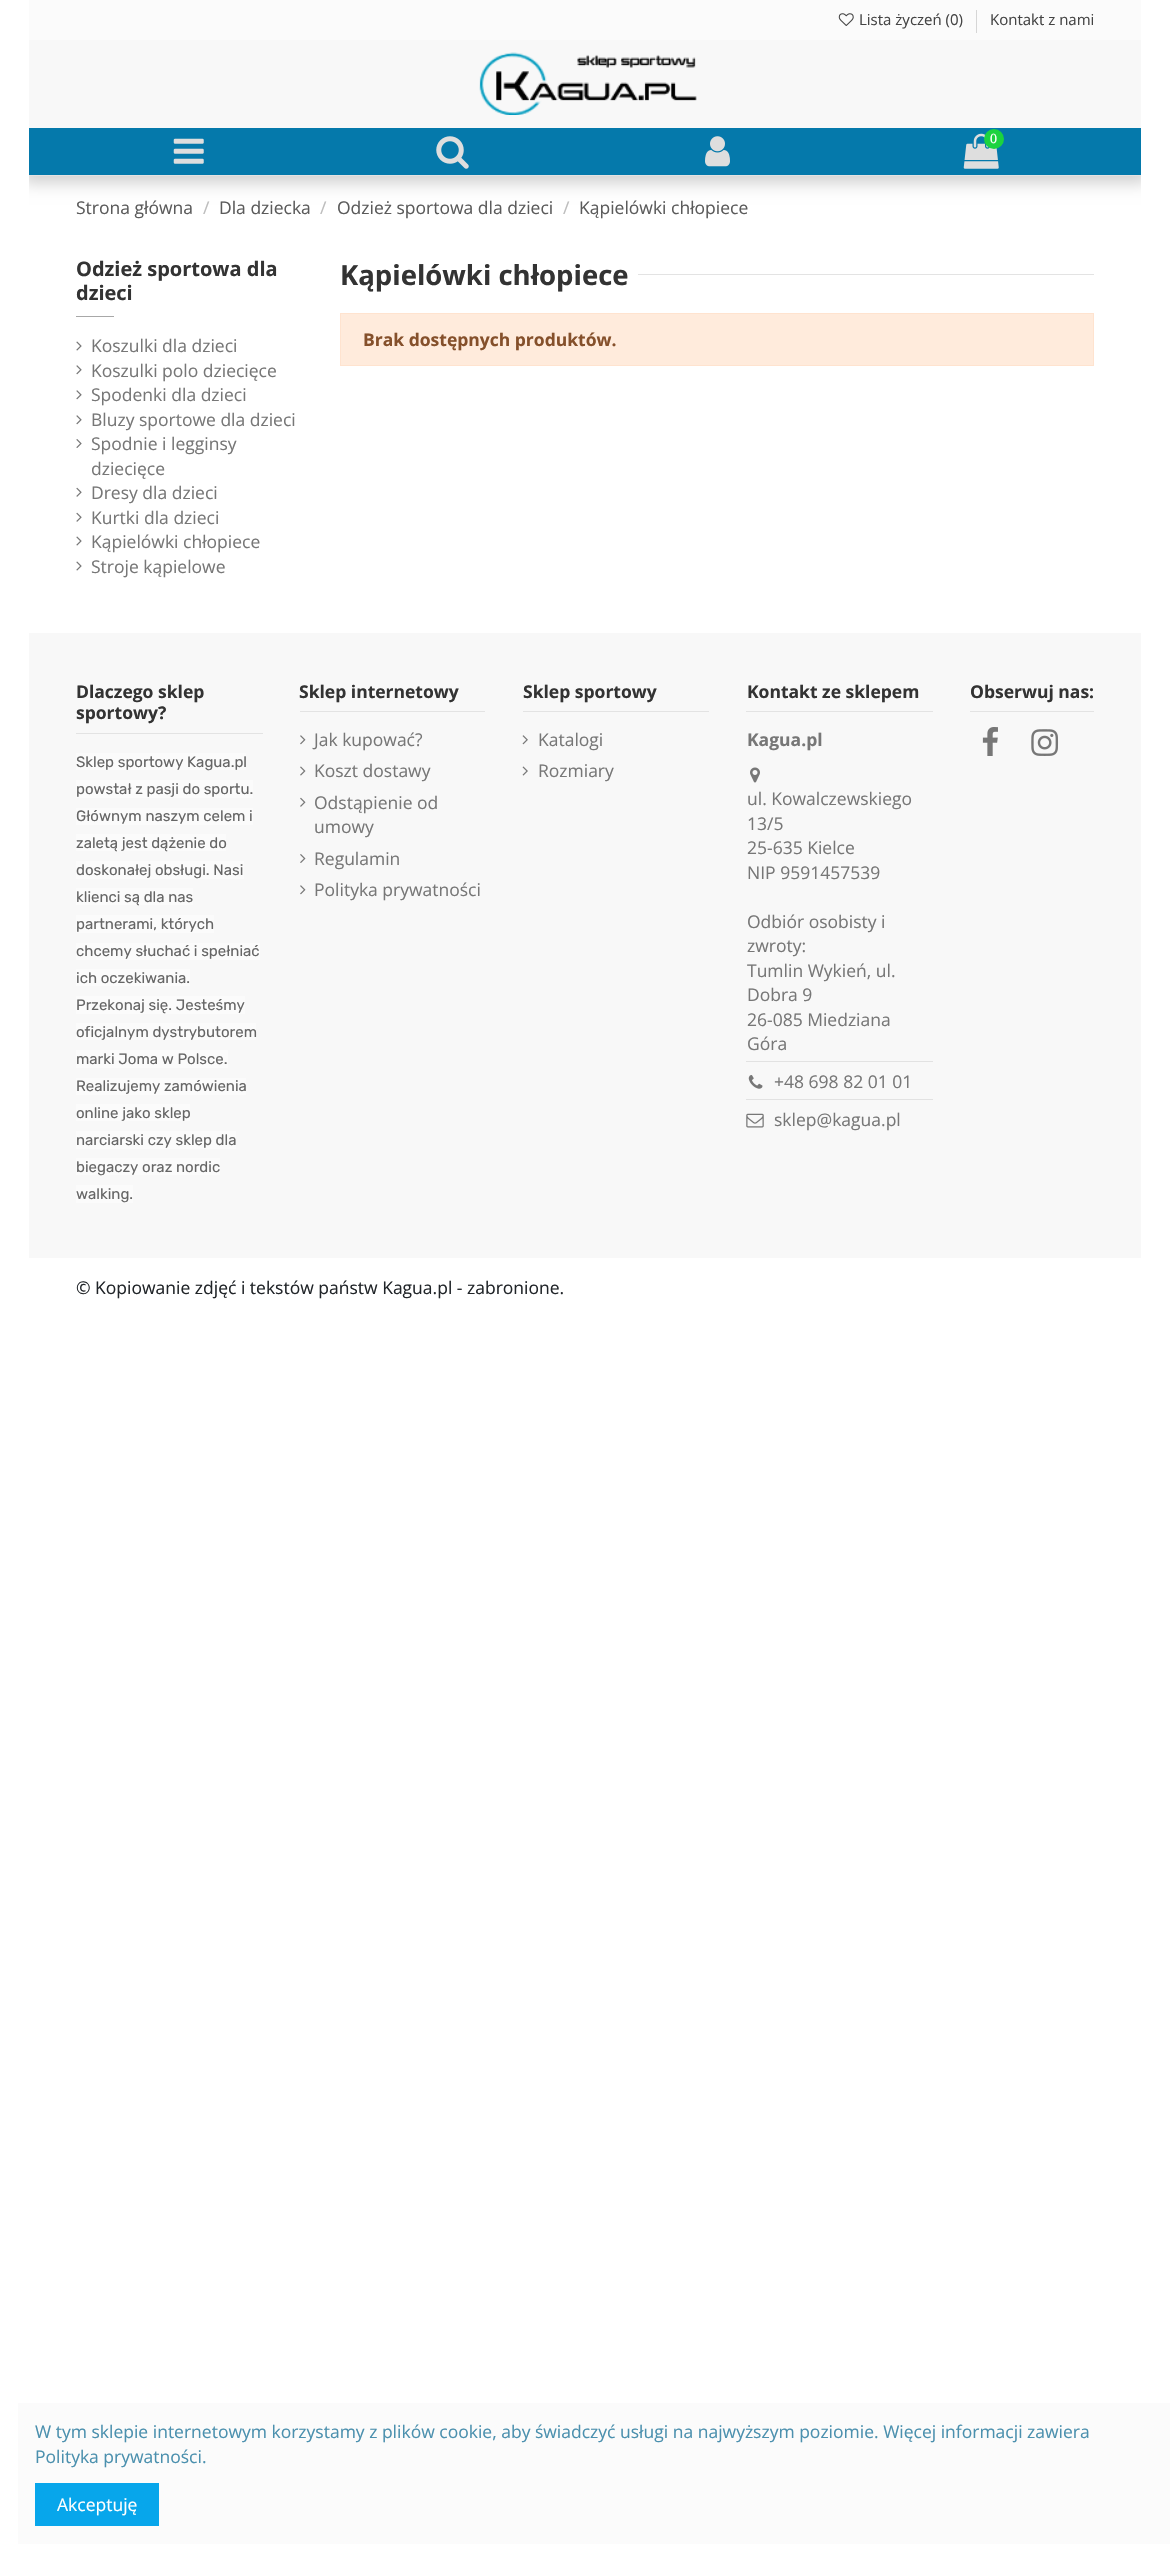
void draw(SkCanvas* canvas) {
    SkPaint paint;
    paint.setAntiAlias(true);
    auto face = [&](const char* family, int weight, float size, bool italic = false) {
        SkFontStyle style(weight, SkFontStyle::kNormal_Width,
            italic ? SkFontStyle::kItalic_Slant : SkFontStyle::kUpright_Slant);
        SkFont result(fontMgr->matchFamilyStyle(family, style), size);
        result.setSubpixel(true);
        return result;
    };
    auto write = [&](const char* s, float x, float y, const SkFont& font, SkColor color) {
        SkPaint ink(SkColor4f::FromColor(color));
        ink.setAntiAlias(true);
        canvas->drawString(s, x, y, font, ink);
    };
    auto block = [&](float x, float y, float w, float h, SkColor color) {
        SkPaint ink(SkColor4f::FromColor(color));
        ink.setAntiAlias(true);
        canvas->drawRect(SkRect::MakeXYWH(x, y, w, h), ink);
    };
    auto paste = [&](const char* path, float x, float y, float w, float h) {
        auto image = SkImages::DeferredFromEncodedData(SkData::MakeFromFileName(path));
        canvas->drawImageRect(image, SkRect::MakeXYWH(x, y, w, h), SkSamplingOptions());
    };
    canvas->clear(SK_ColorWHITE);
    canvas->save();
    canvas->clipRect(SkRect::MakeXYWH(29, 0, 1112, 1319));
    paint.setColor(SkColorSetRGB(208, 208, 208));
    paint.setMaskFilter(SkMaskFilter::MakeBlur(kNormal_SkBlurStyle, 7.5f));
    canvas->drawRect(SkRect::MakeXYWH(23, -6, 1125, 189), paint);
    paint.setMaskFilter(nullptr);
    canvas->restore();
    block(29, 0, 1112, 40, SkColorSetRGB(251, 251, 251));
    paste("pic1.png", 838, 13, 16, 13);
    auto kFont1 = face("Open Sans", 400, 15);
    write("Lista życzeń (0)", 859, 25, kFont1, SkColorSetRGB(68, 68, 68));
    block(976, 10, 1, 23, SkColorSetRGB(214, 214, 214));
    write("Kontakt z nami", 990, 25, kFont1, SkColorSetRGB(68, 68, 68));
    block(29, 40, 1112, 88, SkColorSetRGB(248, 248, 248));
    block(29, 175, 1112, 1, SkColorSetRGB(227, 227, 227));
    paste("pic2.png", 479, 52, 218, 63);
    block(29, 128, 1112, 47, SkColorSetRGB(5, 121, 171));
    paste("pic3.png", 173, 138, 31, 26);
    paste("pic4.png", 436, 136, 33, 33);
    paste("pic5.png", 705, 136, 25, 31);
    paste("pic6.png", 963, 133, 36, 36);
    paint.setColor(SkColorSetRGB(27, 211, 63));
    canvas->drawCircle(994, 139, 10, paint);
    auto kFont2 = face("Liberation Serif", 400, 14);
    write("0", 990, 143, kFont2, SK_ColorWHITE);
    auto kFont3 = face("Open Sans", 400, 17.5f);
    write("Strona główna", 76, 214, kFont3, SkColorSetRGB(91, 91, 91));
    write("/", 203, 214, kFont3, SkColorSetRGB(189, 189, 189));
    write("Dla dziecka", 219, 214, kFont3, SkColorSetRGB(91, 91, 91));
    write("/", 320, 214, kFont3, SkColorSetRGB(189, 189, 189));
    write("Odzież sportowa dla dzieci", 337, 214, kFont3, SkColorSetRGB(91, 91, 91));
    write("/", 563, 214, kFont3, SkColorSetRGB(189, 189, 189));
    write("Kąpielówki chłopiece", 579, 214, kFont3, SkColorSetRGB(91, 91, 91));
    auto kFont4 = face("Open Sans", 700, 20);
    write("Odzież sportowa dla", 76, 276, kFont4, SkColorSetRGB(51, 51, 51));
    write("dzieci", 76, 300, kFont4, SkColorSetRGB(51, 51, 51));
    block(76, 316, 38, 1, SkColorSetRGB(168, 168, 168));
    paste("pic7.png", 76, 341, 6, 10);
    write("Koszulki dla dzieci", 91, 352, kFont3, SkColorSetRGB(119, 119, 119));
    paste("pic8.png", 76, 365, 6, 10);
    write("Koszulki polo dziecięce", 91, 377, kFont3, SkColorSetRGB(119, 119, 119));
    paste("pic8.png", 76, 390, 6, 10);
    write("Spodenki dla dzieci", 91, 401, kFont3, SkColorSetRGB(119, 119, 119));
    paste("pic8.png", 76, 415, 6, 10);
    write("Bluzy sportowe dla dzieci", 91, 426, kFont3, SkColorSetRGB(119, 119, 119));
    paste("pic9.png", 76, 439, 6, 9);
    write("Spodnie i legginsy", 91, 450, kFont3, SkColorSetRGB(119, 119, 119));
    write("dziecięce", 91, 475, kFont3, SkColorSetRGB(119, 119, 119));
    paste("pic10.png", 76, 487, 6, 10);
    write("Dresy dla dzieci", 91, 499, kFont3, SkColorSetRGB(119, 119, 119));
    paste("pic10.png", 76, 512, 6, 10);
    write("Kurtki dla dzieci", 91, 524, kFont3, SkColorSetRGB(119, 119, 119));
    paste("pic7.png", 76, 536, 6, 10);
    write("Kąpielówki chłopiece", 91, 548, kFont3, SkColorSetRGB(119, 119, 119));
    paste("pic7.png", 76, 561, 6, 10);
    write("Stroje kąpielowe", 91, 573, kFont3, SkColorSetRGB(119, 119, 119));
    auto kFont5 = face("Open Sans", 700, 27.5f);
    write("Kąpielówki chłopiece", 340, 285, kFont5, SkColorSetRGB(51, 51, 51));
    block(638, 274, 456, 1, SkColorSetRGB(227, 227, 227));
    paint.setColor(SkColorSetRGB(255, 235, 220));
    canvas->drawRect(SkRect::MakeXYWH(340.5f, 313.5f, 753, 52), paint);
    paint.setStyle(SkPaint::kStroke_Style);
    paint.setStrokeWidth(1);
    paint.setColor(SkColorSetRGB(255, 227, 207));
    canvas->drawRect(SkRect::MakeXYWH(340.5f, 313.5f, 753, 52), paint);
    auto kFont6 = face("Open Sans", 700, 17.5f);
    write("Brak dostępnych produktów.", 363, 346, kFont6, SkColorSetRGB(133, 80, 43));
    block(29, 633, 1112, 625, SkColorSetRGB(248, 248, 248));
    block(76, 733, 187, 1, SkColorSetRGB(227, 227, 227));
    write("Dlaczego sklep", 76, 698, kFont6, SkColorSetRGB(51, 51, 51));
    write("sportowy?", 76, 719, kFont6, SkColorSetRGB(51, 51, 51));
    block(76, 753, 170, 17, SkColorSetRGB(251, 251, 251));
    auto kFont7 = face("Rubik", 400, 15);
    write("Sklep sportowy Kagua.pl", 76, 767, kFont7, SkColorSetRGB(102, 102, 102));
    block(76, 780, 177, 18, SkColorSetRGB(251, 251, 251));
    write("powstał z pasji do sportu.", 76, 794, kFont7, SkColorSetRGB(102, 102, 102));
    block(76, 808, 177, 17, SkColorSetRGB(251, 251, 251));
    write("Głównym naszym celem i", 76, 821, kFont7, SkColorSetRGB(102, 102, 102));
    block(76, 834, 150, 17, SkColorSetRGB(251, 251, 251));
    write("zaletą jest dążenie do", 76, 848, kFont7, SkColorSetRGB(102, 102, 102));
    block(76, 861, 168, 18, SkColorSetRGB(251, 251, 251));
    write("doskonałej obsługi. Nasi", 76, 875, kFont7, SkColorSetRGB(102, 102, 102));
    block(76, 888, 117, 17, SkColorSetRGB(251, 251, 251));
    write("klienci są dla nas", 76, 902, kFont7, SkColorSetRGB(102, 102, 102));
    block(76, 915, 138, 18, SkColorSetRGB(251, 251, 251));
    write("partnerami, których", 76, 929, kFont7, SkColorSetRGB(102, 102, 102));
    block(76, 943, 184, 17, SkColorSetRGB(251, 251, 251));
    write("chcemy słuchać i spełniać", 76, 956, kFont7, SkColorSetRGB(102, 102, 102));
    block(76, 969, 114, 17, SkColorSetRGB(251, 251, 251));
    write("ich oczekiwania.", 76, 983, kFont7, SkColorSetRGB(102, 102, 102));
    block(76, 996, 169, 18, SkColorSetRGB(251, 251, 251));
    write("Przekonaj się. Jesteśmy", 76, 1010, kFont7, SkColorSetRGB(102, 102, 102));
    block(76, 1023, 180, 17, SkColorSetRGB(251, 251, 251));
    write("oficjalnym dystrybutorem", 76, 1037, kFont7, SkColorSetRGB(102, 102, 102));
    block(76, 1050, 152, 18, SkColorSetRGB(251, 251, 251));
    write("marki Joma w Polsce.", 76, 1064, kFont7, SkColorSetRGB(102, 102, 102));
    block(76, 1078, 170, 17, SkColorSetRGB(251, 251, 251));
    write("Realizujemy zamówienia", 76, 1091, kFont7, SkColorSetRGB(102, 102, 102));
    block(76, 1104, 114, 17, SkColorSetRGB(251, 251, 251));
    write("online jako sklep", 76, 1118, kFont7, SkColorSetRGB(102, 102, 102));
    block(76, 1131, 160, 18, SkColorSetRGB(251, 251, 251));
    write("narciarski czy sklep dla", 76, 1145, kFont7, SkColorSetRGB(102, 102, 102));
    block(76, 1158, 144, 17, SkColorSetRGB(251, 251, 251));
    write("biegaczy oraz nordic", 76, 1172, kFont7, SkColorSetRGB(102, 102, 102));
    block(76, 1185, 57, 18, SkColorSetRGB(251, 251, 251));
    write("walking.", 76, 1199, kFont7, SkColorSetRGB(102, 102, 102));
    block(300, 711, 185, 1, SkColorSetRGB(227, 227, 227));
    write("Sklep internetowy", 299, 698, kFont6, SkColorSetRGB(51, 51, 51));
    paste("pic11.png", 300, 735, 6, 10);
    write("Jak kupować?", 314, 746, kFont3, SkColorSetRGB(119, 119, 119));
    paste("pic12.png", 300, 766, 6, 10);
    write("Koszt dostawy", 314, 777, kFont3, SkColorSetRGB(119, 119, 119));
    paste("pic13.png", 300, 797, 6, 10);
    write("Odstąpienie od", 314, 809, kFont3, SkColorSetRGB(119, 119, 119));
    write("umowy", 314, 833, kFont3, SkColorSetRGB(119, 119, 119));
    paste("pic14.png", 300, 854, 6, 9);
    write("Regulamin", 314, 865, kFont3, SkColorSetRGB(119, 119, 119));
    paste("pic11.png", 300, 885, 6, 10);
    write("Polityka prywatności", 314, 896, kFont3, SkColorSetRGB(119, 119, 119));
    block(523, 711, 186, 1, SkColorSetRGB(227, 227, 227));
    write("Sklep sportowy", 523, 698, kFont6, SkColorSetRGB(51, 51, 51));
    paste("pic15.png", 522, 735, 6, 10);
    write("Katalogi", 538, 746, kFont3, SkColorSetRGB(119, 119, 119));
    paste("pic16.png", 522, 766, 6, 10);
    write("Rozmiary", 538, 777, kFont3, SkColorSetRGB(119, 119, 119));
    block(746, 711, 187, 1, SkColorSetRGB(227, 227, 227));
    write("Kontakt ze sklepem", 747, 698, kFont6, SkColorSetRGB(51, 51, 51));
    write("Kagua.pl", 747, 746, kFont6, SkColorSetRGB(119, 119, 119));
    paste("pic17.png", 750, 767, 10, 16);
    write("ul. Kowalczewskiego", 747, 805, kFont3, SkColorSetRGB(119, 119, 119));
    write("13/5", 747, 830, kFont3, SkColorSetRGB(119, 119, 119));
    write("25-635 Kielce", 747, 854, kFont3, SkColorSetRGB(119, 119, 119));
    write("NIP 9591457539", 747, 879, kFont3, SkColorSetRGB(119, 119, 119));
    write("Odbiór osobisty i", 747, 928, kFont3, SkColorSetRGB(119, 119, 119));
    write("zwroty:", 747, 952, kFont3, SkColorSetRGB(119, 119, 119));
    write("Tumlin Wykień, ul.", 747, 977, kFont3, SkColorSetRGB(119, 119, 119));
    write("Dobra 9", 747, 1001, kFont3, SkColorSetRGB(119, 119, 119));
    write("26-085 Miedziana", 747, 1026, kFont3, SkColorSetRGB(119, 119, 119));
    write("Góra", 747, 1050, kFont3, SkColorSetRGB(119, 119, 119));
    block(746, 1061, 187, 1, SkColorSetRGB(226, 226, 226));
    paste("pic18.png", 748, 1075, 15, 14);
    write("+48 698 82 01 01", 774, 1088, kFont3, SkColorSetRGB(119, 119, 119));
    block(746, 1099, 187, 1, SkColorSetRGB(226, 226, 226));
    paste("pic19.png", 746, 1113, 18, 15);
    write("sklep@kagua.pl", 774, 1126, kFont3, SkColorSetRGB(119, 119, 119));
    block(970, 711, 124, 1, SkColorSetRGB(227, 227, 227));
    write("Obserwuj nas:", 970, 698, kFont6, SkColorSetRGB(51, 51, 51));
    paste("pic20.png", 982, 727, 16, 29);
    paste("pic21.png", 1031, 729, 28, 27);
    write("© Kopiowanie zdjęć i tekstów państw Kagua.pl - zabronione.", 76, 1294, kFont3, SkColorSetRGB(33, 37, 41));
    block(18, 2403, 1152, 141, SkColorSetRGB(251, 251, 251));
    write("W tym sklepie internetowym korzystamy z plików cookie, aby świadczyć usługi na najwyższym poziomie. Więcej informacji zawiera", 35, 2438, kFont3, SkColorSetRGB(75, 144, 174));
    write("Polityka prywatności.", 35, 2463, kFont3, SkColorSetRGB(75, 144, 174));
    block(35, 2483, 124, 43, SkColorSetRGB(7, 166, 235));
    write("Akceptuję", 57, 2511, kFont3, SK_ColorWHITE);
}
